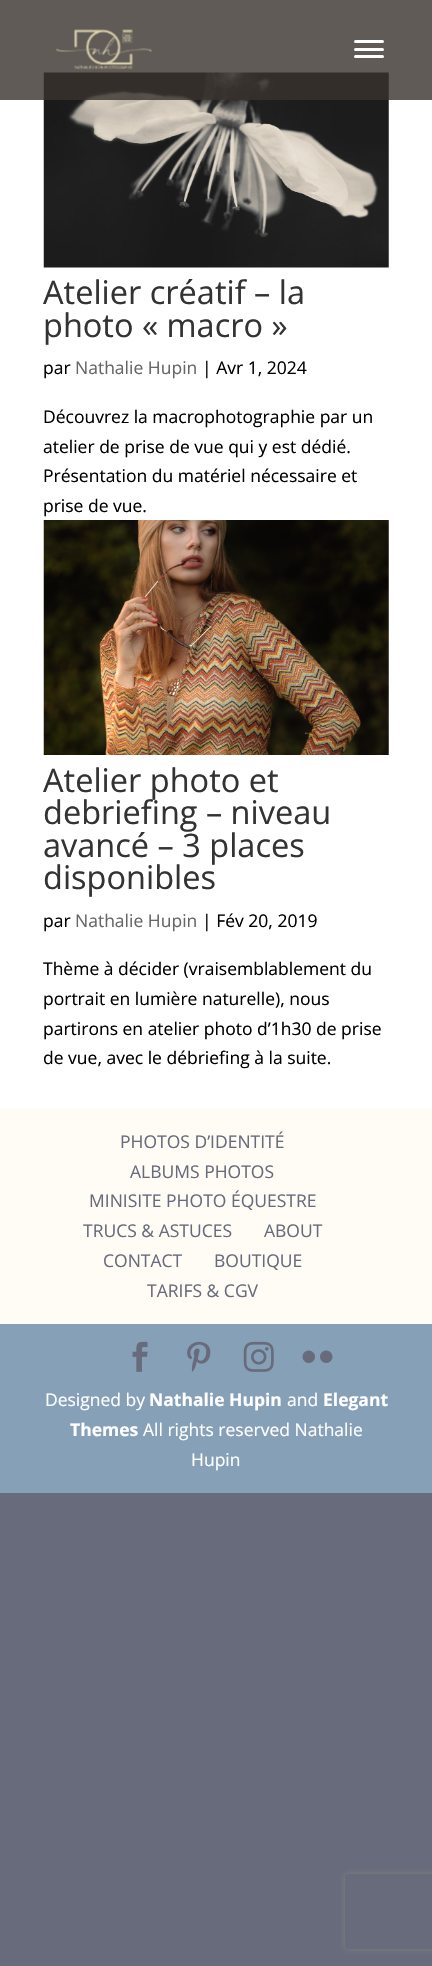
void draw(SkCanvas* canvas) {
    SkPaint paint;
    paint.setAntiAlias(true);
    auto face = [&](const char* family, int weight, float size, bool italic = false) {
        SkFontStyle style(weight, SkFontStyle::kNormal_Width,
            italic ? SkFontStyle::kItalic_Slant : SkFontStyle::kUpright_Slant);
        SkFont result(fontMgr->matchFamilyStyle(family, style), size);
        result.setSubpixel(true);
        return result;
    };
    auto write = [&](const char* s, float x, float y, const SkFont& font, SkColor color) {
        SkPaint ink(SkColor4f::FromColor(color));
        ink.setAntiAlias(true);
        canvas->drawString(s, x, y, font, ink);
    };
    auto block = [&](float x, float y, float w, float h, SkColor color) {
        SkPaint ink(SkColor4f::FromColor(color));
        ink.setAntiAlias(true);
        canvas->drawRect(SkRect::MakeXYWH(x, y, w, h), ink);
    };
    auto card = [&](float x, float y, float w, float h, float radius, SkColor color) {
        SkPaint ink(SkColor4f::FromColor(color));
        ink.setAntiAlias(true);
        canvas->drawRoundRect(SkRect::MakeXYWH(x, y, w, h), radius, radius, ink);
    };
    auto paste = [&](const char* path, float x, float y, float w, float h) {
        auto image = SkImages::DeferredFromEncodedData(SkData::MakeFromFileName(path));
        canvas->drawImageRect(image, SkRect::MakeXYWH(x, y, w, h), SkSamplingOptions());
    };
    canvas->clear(SkColorSetRGB(104, 107, 123));
    block(0, 0, 432, 1108, SK_ColorWHITE);
    paste("pic2.png", 43, 72, 346, 196);
    block(0, 0, 432, 100, SkColorSetARGB(204, 56, 50, 45));
    paste("pic1.png", 56, 29, 96, 41);
    card(354, 40, 30, 3, 1.5f, SK_ColorWHITE);
    card(354, 48, 30, 3, 1.5f, SK_ColorWHITE);
    card(354, 55, 30, 3, 1.5f, SK_ColorWHITE);
    auto kFont1 = face("Open Sans", 400, 32.5f);
    write("Atelier créatif – la", 43, 304, kFont1, SkColorSetRGB(51, 51, 51));
    write("photo « macro »", 43, 337, kFont1, SkColorSetRGB(51, 51, 51));
    auto kFont2 = face("Open Sans", 400, 17.5f);
    write("par", 43, 374, kFont2, SK_ColorBLACK);
    write("Nathalie Hupin", 75, 374, kFont2, SkColorSetRGB(102, 102, 102));
    write("| Avr 1, 2024", 202, 374, kFont2, SK_ColorBLACK);
    write("Découvrez la macrophotographie par un", 43, 423, kFont2, SK_ColorBLACK);
    write("atelier de prise de vue qui y est dédié.", 43, 453, kFont2, SK_ColorBLACK);
    write("Présentation du matériel nécessaire et", 43, 482, kFont2, SK_ColorBLACK);
    write("prise de vue.", 43, 512, kFont2, SK_ColorBLACK);
    paste("pic3.png", 43, 520, 346, 235);
    write("Atelier photo et", 43, 792, kFont1, SkColorSetRGB(51, 51, 51));
    write("debriefing – niveau", 43, 824, kFont1, SkColorSetRGB(51, 51, 51));
    write("avancé – 3 places", 43, 857, kFont1, SkColorSetRGB(51, 51, 51));
    write("disponibles", 43, 889, kFont1, SkColorSetRGB(51, 51, 51));
    write("par", 43, 927, kFont2, SK_ColorBLACK);
    write("Nathalie Hupin", 75, 927, kFont2, SkColorSetRGB(102, 102, 102));
    write("| Fév 20, 2019", 202, 927, kFont2, SK_ColorBLACK);
    write("Thème à décider (vraisemblablement du", 43, 975, kFont2, SK_ColorBLACK);
    write("portrait en lumière naturelle), nous", 43, 1005, kFont2, SK_ColorBLACK);
    write("partirons en atelier photo d’1h30 de prise", 43, 1035, kFont2, SK_ColorBLACK);
    write("de vue, avec le débriefing à la suite.", 43, 1064, kFont2, SK_ColorBLACK);
    block(0, 1108, 432, 216, SkColorSetRGB(254, 252, 245));
    write("PHOTOS D’IDENTITÉ", 120, 1148, kFont2, SkColorSetRGB(104, 107, 123));
    write("ALBUMS PHOTOS", 130, 1178, kFont2, SkColorSetRGB(104, 107, 123));
    write("MINISITE PHOTO ÉQUESTRE", 89, 1207, kFont2, SkColorSetRGB(104, 107, 123));
    write("TRUCS & ASTUCES", 83, 1237, kFont2, SkColorSetRGB(104, 107, 123));
    write("ABOUT", 264, 1237, kFont2, SkColorSetRGB(104, 107, 123));
    write("CONTACT", 103, 1267, kFont2, SkColorSetRGB(104, 107, 123));
    write("BOUTIQUE", 214, 1267, kFont2, SkColorSetRGB(104, 107, 123));
    write("TARIFS & CGV", 147, 1297, kFont2, SkColorSetRGB(104, 107, 123));
    block(0, 1324, 432, 169, SkColorSetRGB(134, 161, 183));
    paste("pic4.png", 132, 1341, 16, 31);
    paste("pic5.png", 187, 1341, 24, 31);
    paste("pic6.png", 243, 1341, 31, 31);
    paste("pic7.png", 302, 1350, 31, 13);
    write("Designed by", 45, 1406, kFont2, SK_ColorWHITE);
    auto kFont3 = face("Open Sans", 700, 17.5f);
    write("Nathalie Hupin", 149, 1406, kFont3, SK_ColorWHITE);
    write("and", 287, 1406, kFont2, SK_ColorWHITE);
    write("Elegant", 323, 1406, kFont3, SK_ColorWHITE);
    write("Themes", 70, 1436, kFont3, SK_ColorWHITE);
    write("All rights reserved Nathalie", 143, 1436, kFont2, SK_ColorWHITE);
    write("Hupin", 191, 1466, kFont2, SK_ColorWHITE);
    canvas->save();
    canvas->clipPath(SkPathBuilder(SkPathFillType::kEvenOdd).moveTo(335, 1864).lineTo(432, 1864).lineTo(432, 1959).lineTo(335, 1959).close().moveTo(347.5f, 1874).lineTo(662.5f, 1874).cubicTo(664, 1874, 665, 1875, 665, 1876.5f).lineTo(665, 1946.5f).cubicTo(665, 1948, 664, 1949, 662.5f, 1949).lineTo(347.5f, 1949).cubicTo(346, 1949, 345, 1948, 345, 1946.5f).lineTo(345, 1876.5f).cubicTo(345, 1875, 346, 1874, 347.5f, 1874).close().detach(), true);
    paint.setColor(SkColorSetRGB(128, 128, 128));
    paint.setMaskFilter(SkMaskFilter::MakeBlur(kNormal_SkBlurStyle, 3));
    canvas->drawRoundRect(SkRect::MakeXYWH(345, 1874, 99, 75), 2.5f, 2.5f, paint);
    paint.setMaskFilter(nullptr);
    canvas->restore();
}
